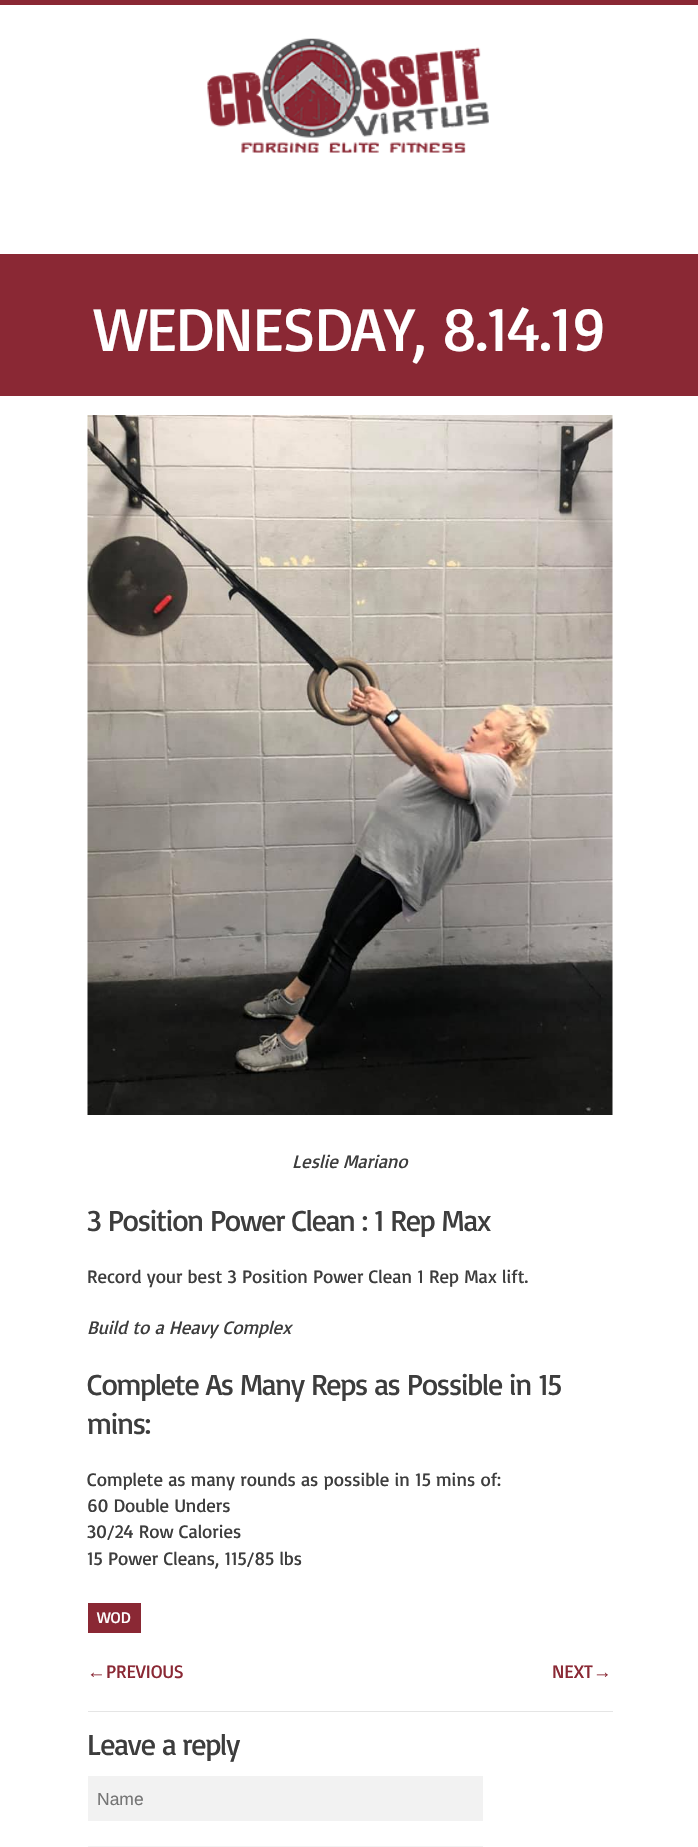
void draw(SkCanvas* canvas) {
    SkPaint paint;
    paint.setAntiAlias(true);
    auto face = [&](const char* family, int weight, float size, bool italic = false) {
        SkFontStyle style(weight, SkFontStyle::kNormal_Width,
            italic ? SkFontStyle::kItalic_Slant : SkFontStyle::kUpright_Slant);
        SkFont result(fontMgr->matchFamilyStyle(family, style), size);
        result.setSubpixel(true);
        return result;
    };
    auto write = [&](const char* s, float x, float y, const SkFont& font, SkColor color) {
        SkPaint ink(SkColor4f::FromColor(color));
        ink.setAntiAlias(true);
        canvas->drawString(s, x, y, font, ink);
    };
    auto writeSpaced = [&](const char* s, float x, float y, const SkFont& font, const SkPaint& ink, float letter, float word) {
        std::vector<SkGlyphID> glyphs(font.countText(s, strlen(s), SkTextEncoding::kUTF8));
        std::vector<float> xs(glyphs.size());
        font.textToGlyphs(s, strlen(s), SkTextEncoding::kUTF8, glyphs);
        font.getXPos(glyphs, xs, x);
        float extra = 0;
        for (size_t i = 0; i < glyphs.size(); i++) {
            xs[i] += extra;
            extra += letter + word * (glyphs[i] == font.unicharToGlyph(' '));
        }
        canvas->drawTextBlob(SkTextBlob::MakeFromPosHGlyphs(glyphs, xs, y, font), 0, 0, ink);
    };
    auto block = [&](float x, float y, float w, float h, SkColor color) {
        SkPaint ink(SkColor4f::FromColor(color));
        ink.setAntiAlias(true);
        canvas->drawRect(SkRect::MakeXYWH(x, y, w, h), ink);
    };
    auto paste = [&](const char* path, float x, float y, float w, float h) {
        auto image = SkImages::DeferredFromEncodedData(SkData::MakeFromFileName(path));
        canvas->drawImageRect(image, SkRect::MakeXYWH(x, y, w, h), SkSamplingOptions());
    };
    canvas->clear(SK_ColorWHITE);
    block(0, 0, 698, 5, SkColorSetRGB(138, 40, 52));
    paste("pic1.png", 207, 38, 282, 115);
    block(0, 254, 698, 142, SkColorSetRGB(138, 40, 52));
    auto kFont1 = face("Basic", 400, 62.5f);
    paint.setColor(SK_ColorWHITE);
    writeSpaced("WEDNESDAY, 8.14.19", 94, 351, kFont1, paint, -1.25f, 0);
    paste("pic2.png", 87, 415, 526, 700);
    auto kFont2 = face("Basic", 400, 18.75f, true);
    write("Leslie Mariano", 292, 1168, kFont2, SkColorSetRGB(61, 61, 61));
    auto kFont3 = face("Basic", 400, 30);
    paint.setColor(SkColorSetRGB(61, 61, 61));
    writeSpaced("3 Position Power Clean : 1 Rep Max", 87, 1231, kFont3, paint, -1.25f, 0);
    auto kFont4 = face("Basic", 400, 18.75f);
    write("Record your best 3 Position Power Clean 1 Rep Max lift.", 87, 1283, kFont4, SkColorSetRGB(61, 61, 61));
    write("Build to a Heavy Complex", 87, 1334, kFont2, SkColorSetRGB(61, 61, 61));
    writeSpaced("Complete As Many Reps as Possible in 15", 87, 1395, kFont3, paint, -1.25f, 0);
    writeSpaced("mins:", 87, 1434, kFont3, paint, -1.25f, 0);
    write("Complete as many rounds as possible in 15 mins of:", 87, 1486, kFont4, SkColorSetRGB(61, 61, 61));
    write("60 Double Unders", 87, 1512, kFont4, SkColorSetRGB(61, 61, 61));
    write("30/24 Row Calories", 87, 1538, kFont4, SkColorSetRGB(61, 61, 61));
    write("15 Power Cleans, 115/85 lbs", 87, 1565, kFont4, SkColorSetRGB(61, 61, 61));
    block(88, 1603, 53, 30, SkColorSetRGB(138, 40, 52));
    auto kFont5 = face("Basic", 400, 16);
    write("WOD", 97, 1623, kFont5, SK_ColorWHITE);
    auto kFont6 = face("Liberation Sans", 400, 18.75f);
    write("←", 87, 1678, kFont6, SkColorSetRGB(138, 40, 52));
    write("PREVIOUS", 106, 1678, kFont4, SkColorSetRGB(138, 40, 52));
    write("NEXT", 552, 1678, kFont4, SkColorSetRGB(138, 40, 52));
    write("→", 593, 1678, kFont6, SkColorSetRGB(138, 40, 52));
    block(88, 1711, 525, 1, SkColorSetRGB(229, 229, 229));
    writeSpaced("Leave a reply", 87, 1755, kFont3, paint, -1.25f, 0);
    block(88, 1776, 395, 45, SkColorSetRGB(242, 242, 242));
    auto kFont7 = face("Liberation Sans", 400, 17.5f);
    write("Name", 97, 1805, kFont7, SkColorSetRGB(117, 117, 117));
    block(88, 1846, 395, 1, SkColorSetRGB(242, 242, 242));
}
